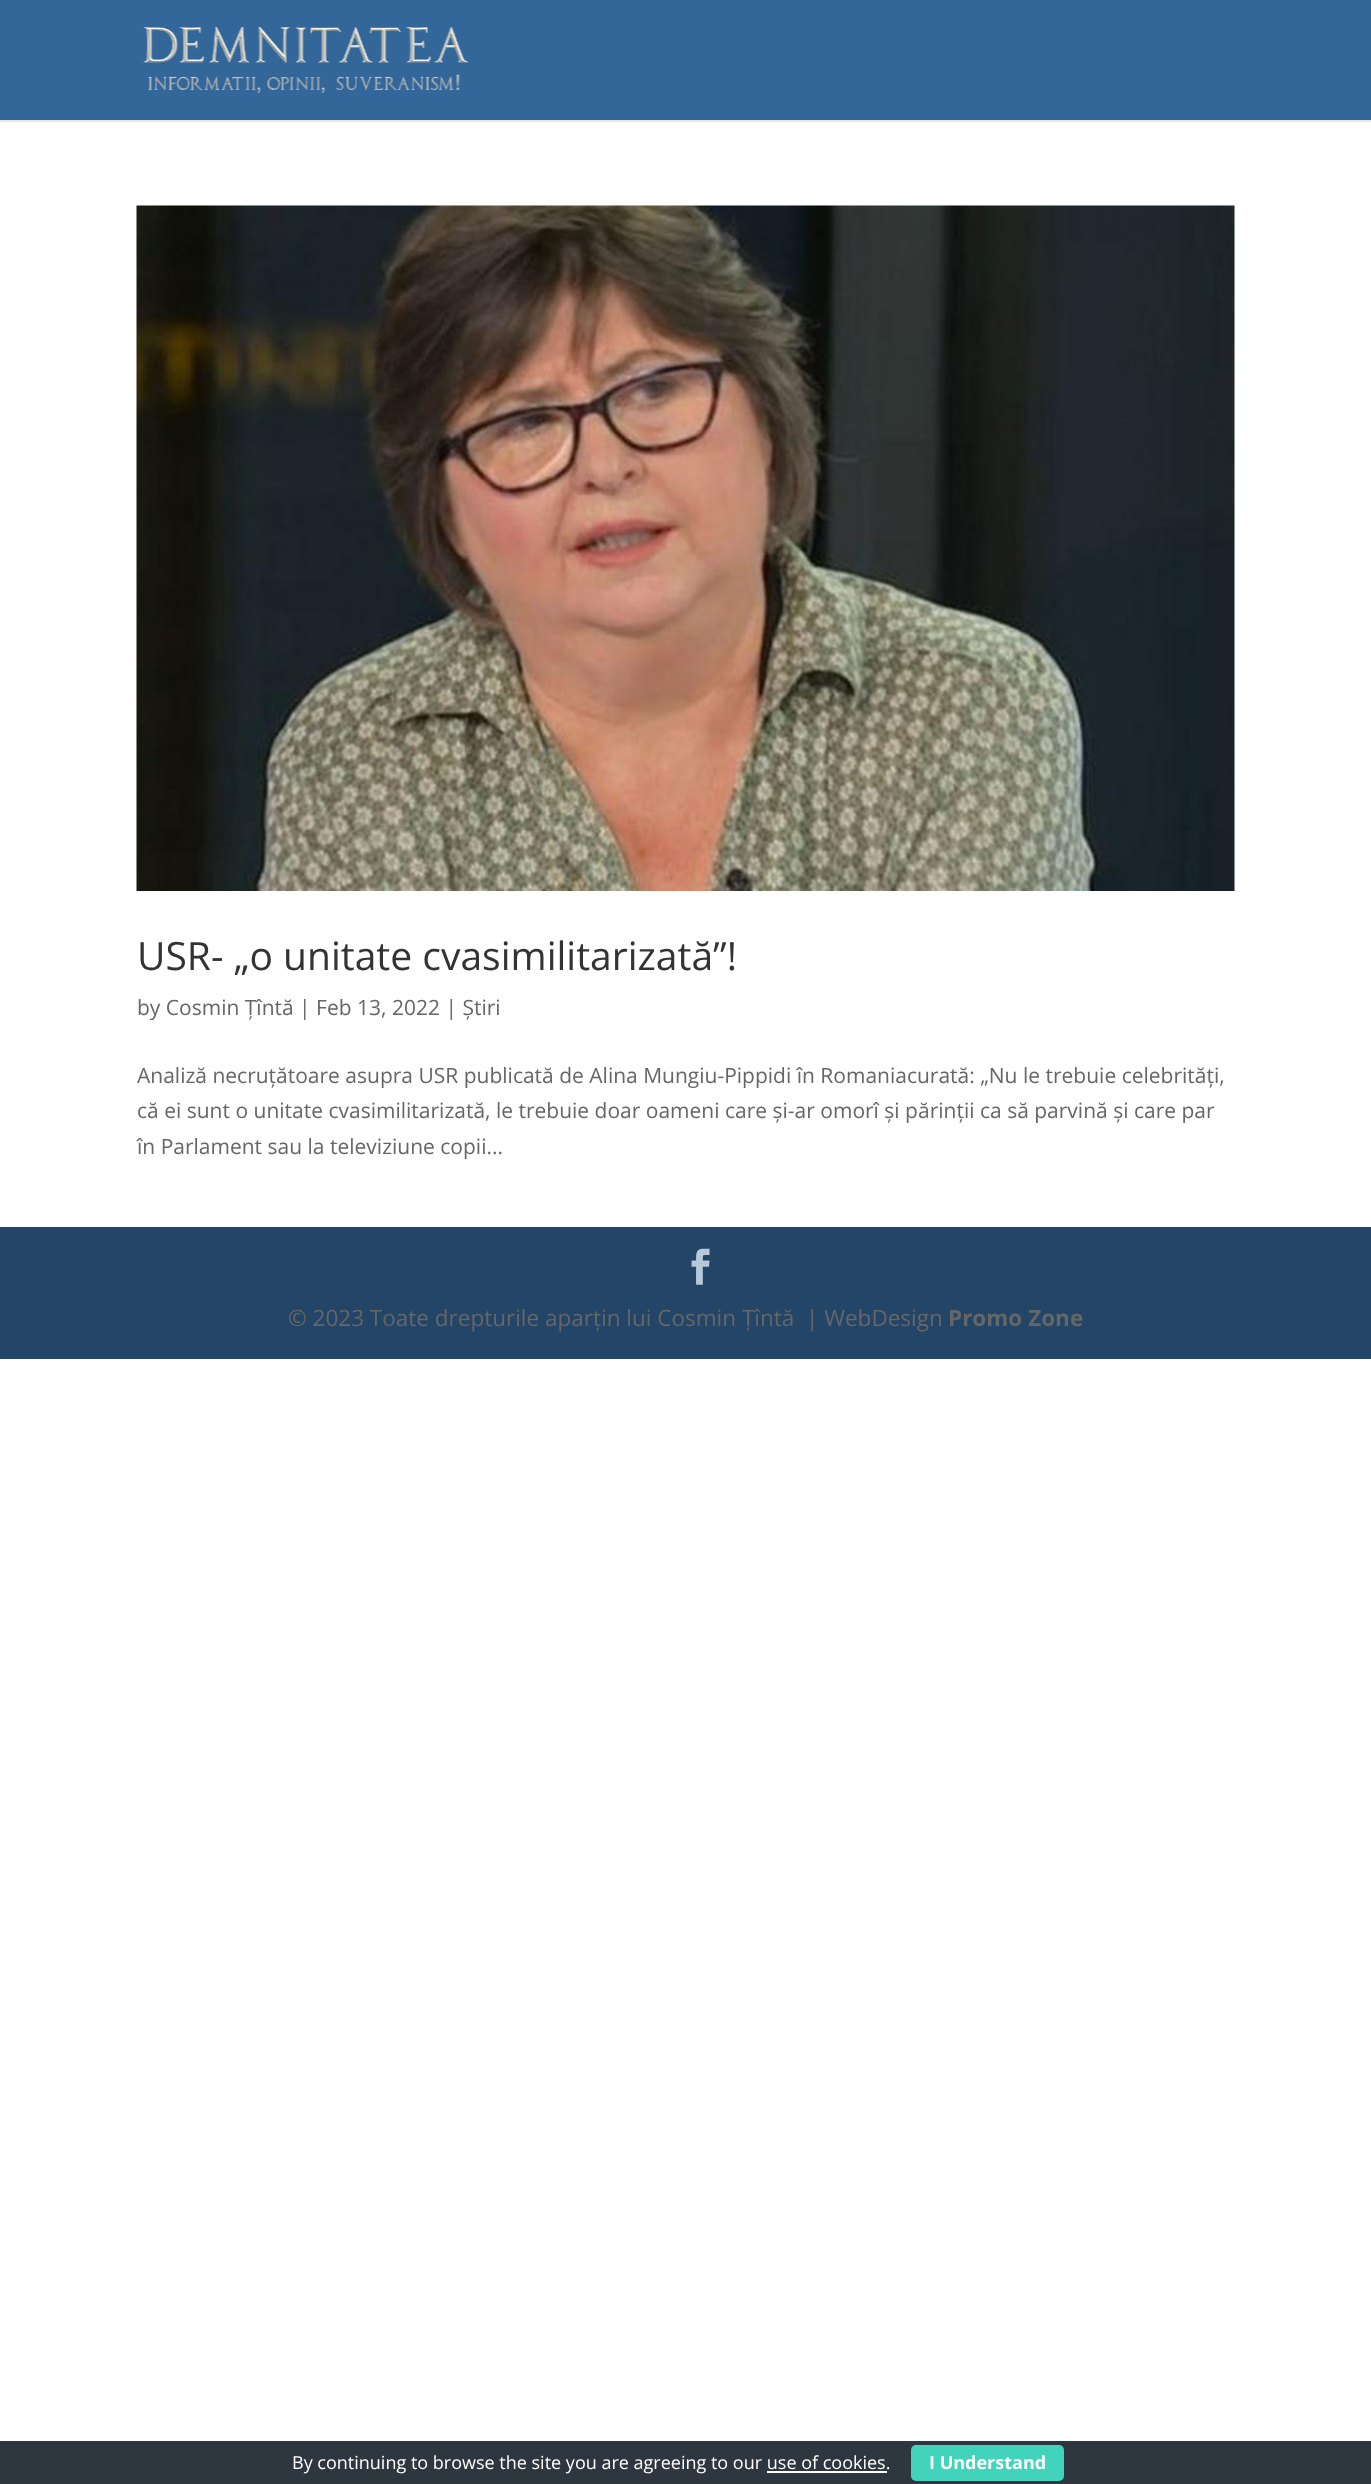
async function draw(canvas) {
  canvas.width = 1371
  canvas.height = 2484
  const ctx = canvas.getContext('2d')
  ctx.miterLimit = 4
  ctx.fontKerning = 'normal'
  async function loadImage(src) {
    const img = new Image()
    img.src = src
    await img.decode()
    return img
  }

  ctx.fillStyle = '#fff'
  ctx.fillRect(0, 0, 1371, 2484)
  ctx.fillStyle = '#e6e6e6'
  ctx.fillRect(0, 120, 1371, 2)
  ctx.fillStyle = '#369'
  ctx.fillRect(0, 0, 1371, 120)
  ctx.drawImage(await loadImage('image0.png'), 143, 27, 326, 66)
  ctx.drawImage(await loadImage('image1.png'), 136, 205, 1099, 686)
  ctx.font = '39px Open Sans'
  ctx.fillStyle = '#333'
  ctx.fillText('USR- „o unitate cvasimilitarizată”!', 137, 970)
  ctx.font = '21px Open Sans'
  ctx.fillStyle = '#666'
  ctx.fillText('by Cosmin Țîntă | Feb 13, 2022 | Știri', 137, 1015)
  ctx.fillText('Analiză necruțătoare asupra USR publicată de Alina Mungiu-Pippidi în Romaniacurată: „Nu le trebuie celebrități,', 137, 1083)
  ctx.fillText('că ei sunt o unitate cvasimilitarizată, le trebuie doar oameni care și-ar omorî și părinții ca să parvină și care par', 137, 1118)
  ctx.fillText('în Parlament sau la televiziune copii...', 137, 1154)
  ctx.fillStyle = '#234568'
  ctx.fillRect(0, 1227, 1371, 132)
  ctx.drawImage(await loadImage('image2.png'), 691, 1248, 19, 37)
  ctx.font = '22.5px Open Sans'
  ctx.fillStyle = '#666'
  ctx.fillText('© 2023 Toate drepturile aparțin lui Cosmin Țîntă', 288, 1326)
  ctx.fillText('| WebDesign', 806, 1326)
  ctx.font = 'bold 22.5px Open Sans'
  ctx.fillText('Promo Zone', 948, 1326)
  ctx.fillStyle = '#2e363f'
  ctx.fillRect(0, 2441, 1371, 43)
  ctx.font = '18px Open Sans'
  ctx.fillStyle = '#fff'
  ctx.fillText('By continuing to browse the site you are agreeing to our use of cookies.', 292, 2469)
  ctx.fillStyle = '#41d3bb'
  ctx.beginPath()
  ctx.roundRect(911, 2445, 153, 36, 5)
  ctx.fill()
  ctx.font = 'bold 18px Open Sans'
  ctx.fillStyle = '#fff'
  ctx.fillText('I Understand', 929, 2469)
  ctx.fillRect(767, 2471, 120, 2)
}

draw(document.querySelector('canvas'))
